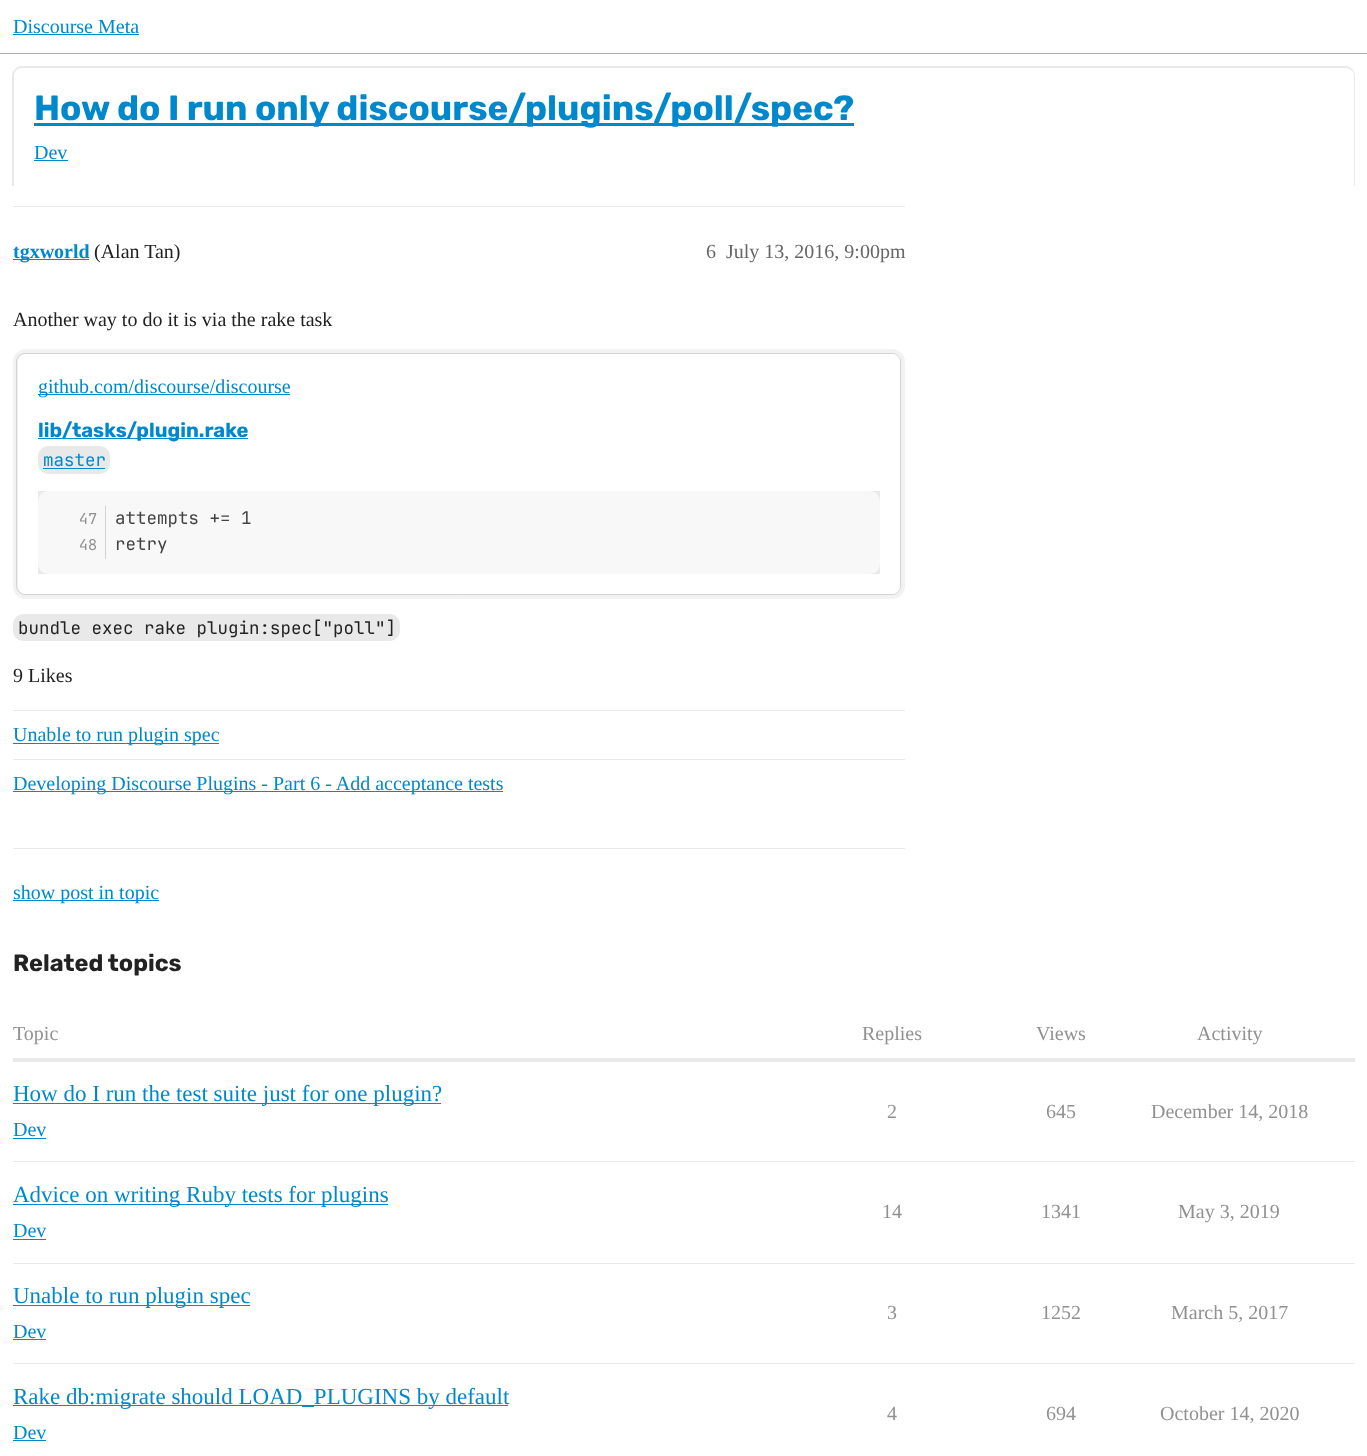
async function draw(canvas) {
  canvas.width = 1367
  canvas.height = 1456
  const ctx = canvas.getContext('2d')
  ctx.miterLimit = 4
  ctx.fontKerning = 'normal'

  ctx.fillStyle = '#fff'
  ctx.fillRect(0, 0, 1367, 1456)
  ctx.fillStyle = '#afafaf'
  ctx.fillRect(0, 53, 1367, 1)
  ctx.font = '20px Liberation Serif'
  ctx.fillStyle = '#08c'
  ctx.fillText('Discourse Meta', 13, 33)
  ctx.fillRect(13, 34, 126, 1)
  ctx.fillStyle = '#e9e9e9'
  ctx.beginPath()
  ctx.moveTo(22, 66)
  ctx.lineTo(1345, 66)
  ctx.bezierCurveTo(1351, 66, 1355, 71, 1355, 76)
  ctx.lineTo(1355, 186)
  ctx.lineTo(12, 186)
  ctx.lineTo(12, 76)
  ctx.bezierCurveTo(12, 71, 17, 66, 22, 66)
  ctx.closePath()
  ctx.moveTo(22, 68)
  ctx.lineTo(1345, 68)
  ctx.bezierCurveTo(1350, 68, 1354, 71, 1354, 76)
  ctx.lineTo(1354, 186)
  ctx.lineTo(14, 186)
  ctx.lineTo(14, 76)
  ctx.bezierCurveTo(14, 71, 18, 68, 22, 68)
  ctx.closePath()
  ctx.fill('evenodd')
  ctx.fillStyle = '#08c'
  ctx.fillRect(34, 123, 820, 3)
  ctx.font = 'bold 35px Rubik'
  ctx.fillText('How do I run only discourse/plugins/poll/spec?', 34, 120)
  ctx.font = '20px Liberation Serif'
  ctx.fillText('Dev', 34, 159)
  ctx.fillRect(34, 160, 34, 1)
  ctx.fillStyle = '#e9e9e9'
  ctx.fillRect(13, 206, 892, 1)
  ctx.fillStyle = '#08c'
  ctx.fillRect(13, 259, 76, 1)
  ctx.font = 'bold 20px Liberation Serif'
  ctx.fillText('tgxworld', 13, 258)
  ctx.font = '20px Liberation Serif'
  ctx.fillStyle = '#222'
  ctx.fillText('(Alan Tan)', 94, 258)
  ctx.fillStyle = '#666'
  ctx.fillText('6', 706, 258)
  ctx.fillText('July 13, 2016, 9:00pm', 726, 258)
  ctx.fillStyle = '#222'
  ctx.fillText('Another way to do it is via the rake task', 13, 326)
  ctx.beginPath()
  ctx.roundRect(15.5, 351.5, 887, 245, 10.5)
  ctx.strokeStyle = '#f2f2f2'
  ctx.lineWidth = 5
  ctx.stroke()
  ctx.beginPath()
  ctx.roundRect(16.5, 353.5, 884, 241, 8.5)
  ctx.strokeStyle = '#d3d3d3'
  ctx.lineWidth = 1
  ctx.stroke()
  ctx.fillStyle = '#fff'
  ctx.beginPath()
  ctx.roundRect(18, 354, 882, 240, 8)
  ctx.fill()
  ctx.fillStyle = '#08c'
  ctx.fillRect(38, 394, 252, 1)
  ctx.fillText('github.com/discourse/discourse', 38, 393)
  ctx.fillRect(38, 438, 210, 1)
  ctx.font = 'bold 20px Rubik'
  ctx.fillText('lib/tasks/plugin.rake', 38, 437)
  ctx.fillStyle = '#e9e9e9'
  ctx.beginPath()
  ctx.roundRect(38, 446, 72, 28, 10)
  ctx.fill()
  ctx.font = '17.5px JetBrains Mono'
  ctx.fillStyle = '#08c'
  ctx.fillText('master', 43, 466)
  ctx.fillRect(43, 468, 62, 1)
  ctx.fillStyle = '#e9e9e9'
  ctx.fillRect(38, 491, 842, 83)
  ctx.fillStyle = '#f8f8f8'
  ctx.beginPath()
  ctx.roundRect(38, 491, 842, 83, 10)
  ctx.fill()
  ctx.fillStyle = '#d3d3d3'
  ctx.fillRect(105, 506, 1, 53)
  ctx.font = '15px JetBrains Mono'
  ctx.fillStyle = '#919191'
  ctx.fillText('47', 79, 524)
  ctx.font = '17.5px JetBrains Mono'
  ctx.fillStyle = '#434343'
  ctx.fillText('attempts += 1', 115, 524)
  ctx.font = '15px JetBrains Mono'
  ctx.fillStyle = '#919191'
  ctx.fillText('48', 79, 550)
  ctx.font = '17.5px JetBrains Mono'
  ctx.fillStyle = '#434343'
  ctx.fillText('retry', 115, 550)
  ctx.fillStyle = '#e9e9e9'
  ctx.beginPath()
  ctx.roundRect(13, 614, 387, 27, 10)
  ctx.fill()
  ctx.fillStyle = '#222'
  ctx.fillText('bundle exec rake plugin:spec["poll"]', 18, 634)
  ctx.font = '20px Liberation Serif'
  ctx.fillText('9 Likes', 13, 682)
  ctx.fillStyle = '#e9e9e9'
  ctx.fillRect(13, 710, 892, 1)
  ctx.fillStyle = '#08c'
  ctx.fillRect(13, 743, 206, 1)
  ctx.fillText('Unable to run plugin spec', 13, 741)
  ctx.fillStyle = '#e9e9e9'
  ctx.fillRect(13, 759, 892, 1)
  ctx.fillStyle = '#08c'
  ctx.fillRect(13, 791, 490, 1)
  ctx.fillText('Developing Discourse Plugins - Part 6 - Add acceptance tests', 13, 790)
  ctx.fillStyle = '#e9e9e9'
  ctx.fillRect(13, 848, 892, 1)
  ctx.fillStyle = '#08c'
  ctx.fillRect(13, 900, 146, 1)
  ctx.fillText('show post in topic', 13, 899)
  ctx.font = 'bold 23.5px Rubik'
  ctx.fillStyle = '#222'
  ctx.fillText('Related topics', 13, 971)
  ctx.save()
  ctx.beginPath()
  ctx.rect(13, 1020, 1342, 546)
  ctx.clip()
  ctx.font = '20px Liberation Serif'
  ctx.fillStyle = '#919191'
  ctx.fillText('Topic', 13, 1040)
  ctx.restore()
  ctx.font = '20px Liberation Serif'
  ctx.fillStyle = '#919191'
  ctx.fillText('Replies', 862, 1040)
  ctx.fillText('Views', 1036, 1040)
  ctx.fillText('Activity', 1197, 1040)
  ctx.fillStyle = '#e9e9e9'
  ctx.fillRect(13, 1058, 1342, 4)
  ctx.fillRect(13, 1161, 1342, 1)
  ctx.fillStyle = '#08c'
  ctx.fillRect(13, 1103, 428, 1)
  ctx.font = '23px Liberation Serif'
  ctx.fillText('How do I run the test suite just for one plugin?', 13, 1101)
  ctx.font = '20px Liberation Serif'
  ctx.fillText('Dev', 13, 1136)
  ctx.fillRect(13, 1138, 33, 1)
  ctx.fillStyle = '#919191'
  ctx.fillText('2', 887, 1118)
  ctx.fillText('645', 1046, 1118)
  ctx.fillText('December 14, 2018', 1151, 1118)
  ctx.fillStyle = '#e9e9e9'
  ctx.fillRect(13, 1263, 1342, 1)
  ctx.fillStyle = '#08c'
  ctx.fillRect(13, 1204, 375, 1)
  ctx.font = '23px Liberation Serif'
  ctx.fillText('Advice on writing Ruby tests for plugins', 13, 1202)
  ctx.font = '20px Liberation Serif'
  ctx.fillText('Dev', 13, 1237)
  ctx.fillRect(13, 1239, 33, 1)
  ctx.fillStyle = '#919191'
  ctx.fillText('14', 882, 1218)
  ctx.fillText('1341', 1041, 1218)
  ctx.fillText('May 3, 2019', 1178, 1218)
  ctx.fillStyle = '#e9e9e9'
  ctx.fillRect(13, 1363, 1342, 1)
  ctx.fillStyle = '#08c'
  ctx.fillRect(13, 1305, 237, 1)
  ctx.font = '23px Liberation Serif'
  ctx.fillText('Unable to run plugin spec', 13, 1303)
  ctx.font = '20px Liberation Serif'
  ctx.fillText('Dev', 13, 1338)
  ctx.fillRect(13, 1339, 33, 1)
  ctx.fillStyle = '#919191'
  ctx.fillText('3', 887, 1319)
  ctx.fillText('1252', 1041, 1319)
  ctx.fillText('March 5, 2017', 1171, 1319)
  ctx.fillStyle = '#08c'
  ctx.fillRect(13, 1405, 495, 1)
  ctx.font = '23px Liberation Serif'
  ctx.fillText('Rake db:migrate should LOAD_PLUGINS by default', 13, 1404)
  ctx.font = '20px Liberation Serif'
  ctx.fillText('Dev', 13, 1439)
  ctx.fillRect(13, 1440, 33, 1)
  ctx.fillStyle = '#919191'
  ctx.fillText('4', 887, 1420)
  ctx.fillText('694', 1046, 1420)
  ctx.fillText('October 14, 2020', 1160, 1420)
}

draw(document.querySelector('canvas'))
